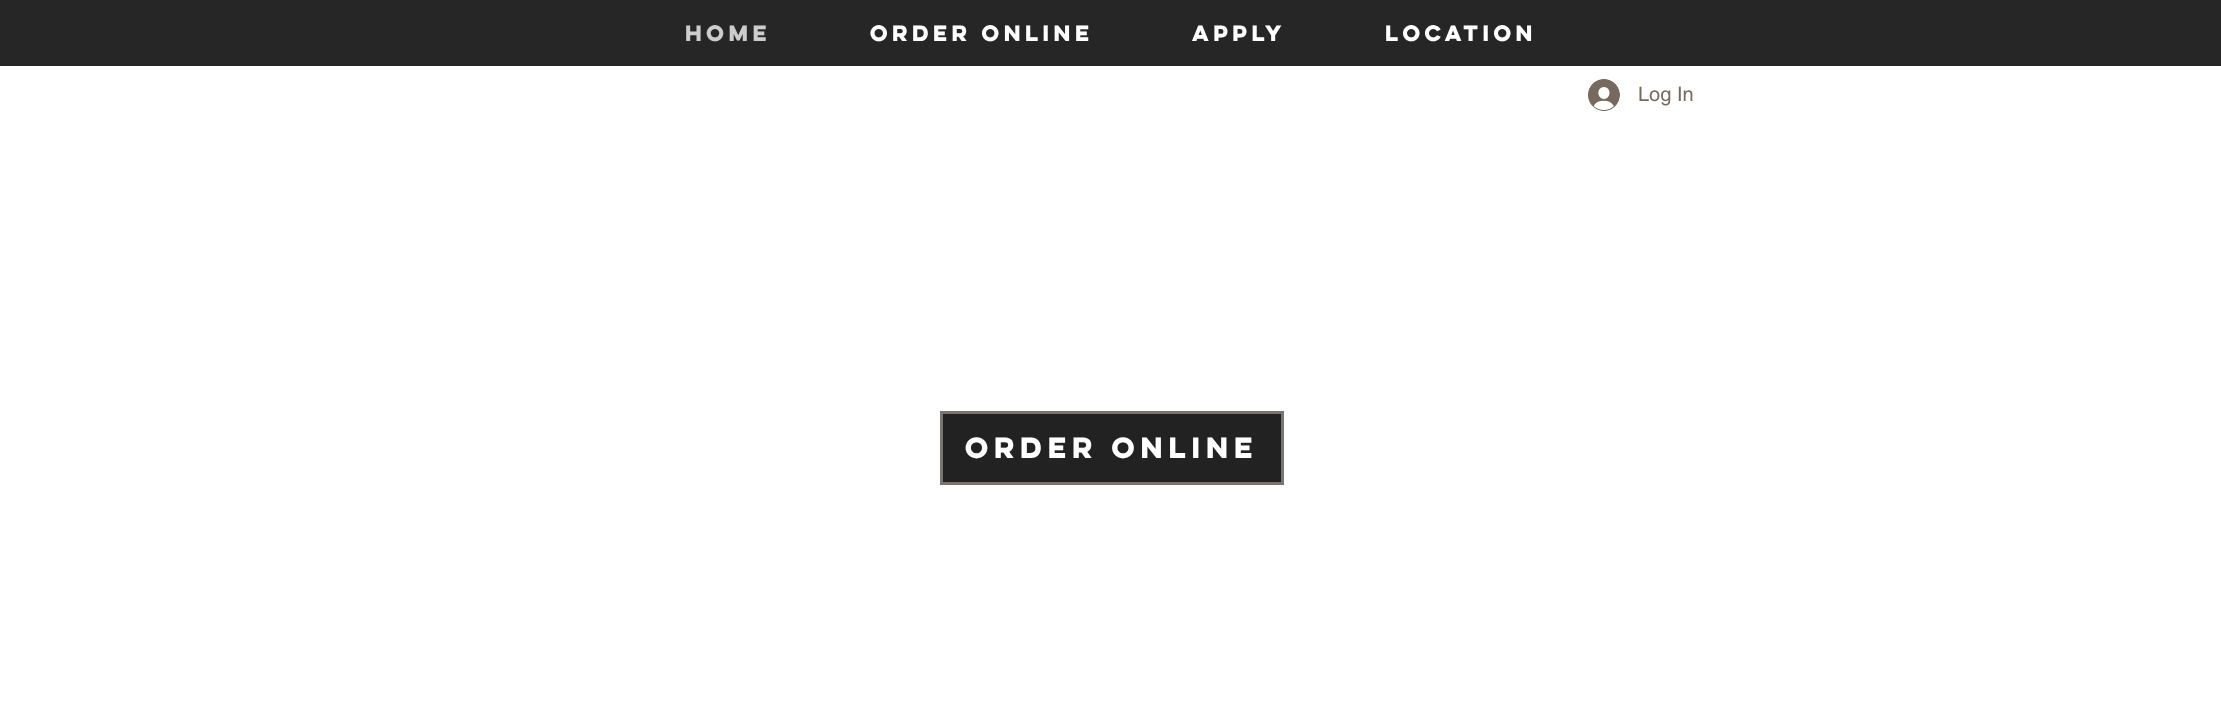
async function draw(canvas) {
  canvas.width = 2221
  canvas.height = 704
  const ctx = canvas.getContext('2d')
  ctx.miterLimit = 4
  ctx.fontKerning = 'normal'
  async function loadImage(src) {
    const img = new Image()
    img.src = src
    await img.decode()
    return img
  }

  ctx.fillStyle = '#fff'
  ctx.fillRect(0, 0, 2221, 704)
  ctx.fillStyle = '#262626'
  ctx.fillRect(0, 0, 2221, 66)
  ctx.font = 'bold 20px "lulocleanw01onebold"'
  ctx.fillStyle = '#ccc'
  ctx.fillText('Home', 685, 41)
  ctx.fillStyle = '#fff'
  ctx.fillText('Order Online', 870, 41)
  ctx.fillText('Apply', 1192, 41)
  ctx.fillText('Location', 1385, 41)
  ctx.drawImage(await loadImage('image0.png'), 1588, 79, 32, 32)
  ctx.font = '20px helvetica'
  ctx.fillStyle = '#756a5d'
  ctx.fillText('Log In', 1638, 101)
  ctx.fillStyle = '#222'
  ctx.beginPath()
  ctx.rect(941.5, 412.5, 341, 71)
  ctx.fill()
  ctx.strokeStyle = '#7b736f'
  ctx.lineWidth = 3
  ctx.stroke()
  ctx.font = 'bold 26.25px "lulocleanw01onebold"'
  ctx.fillStyle = '#fff'
  ctx.fillText('ORDER ONLINE', 965, 458)
}

draw(document.querySelector('canvas'))
